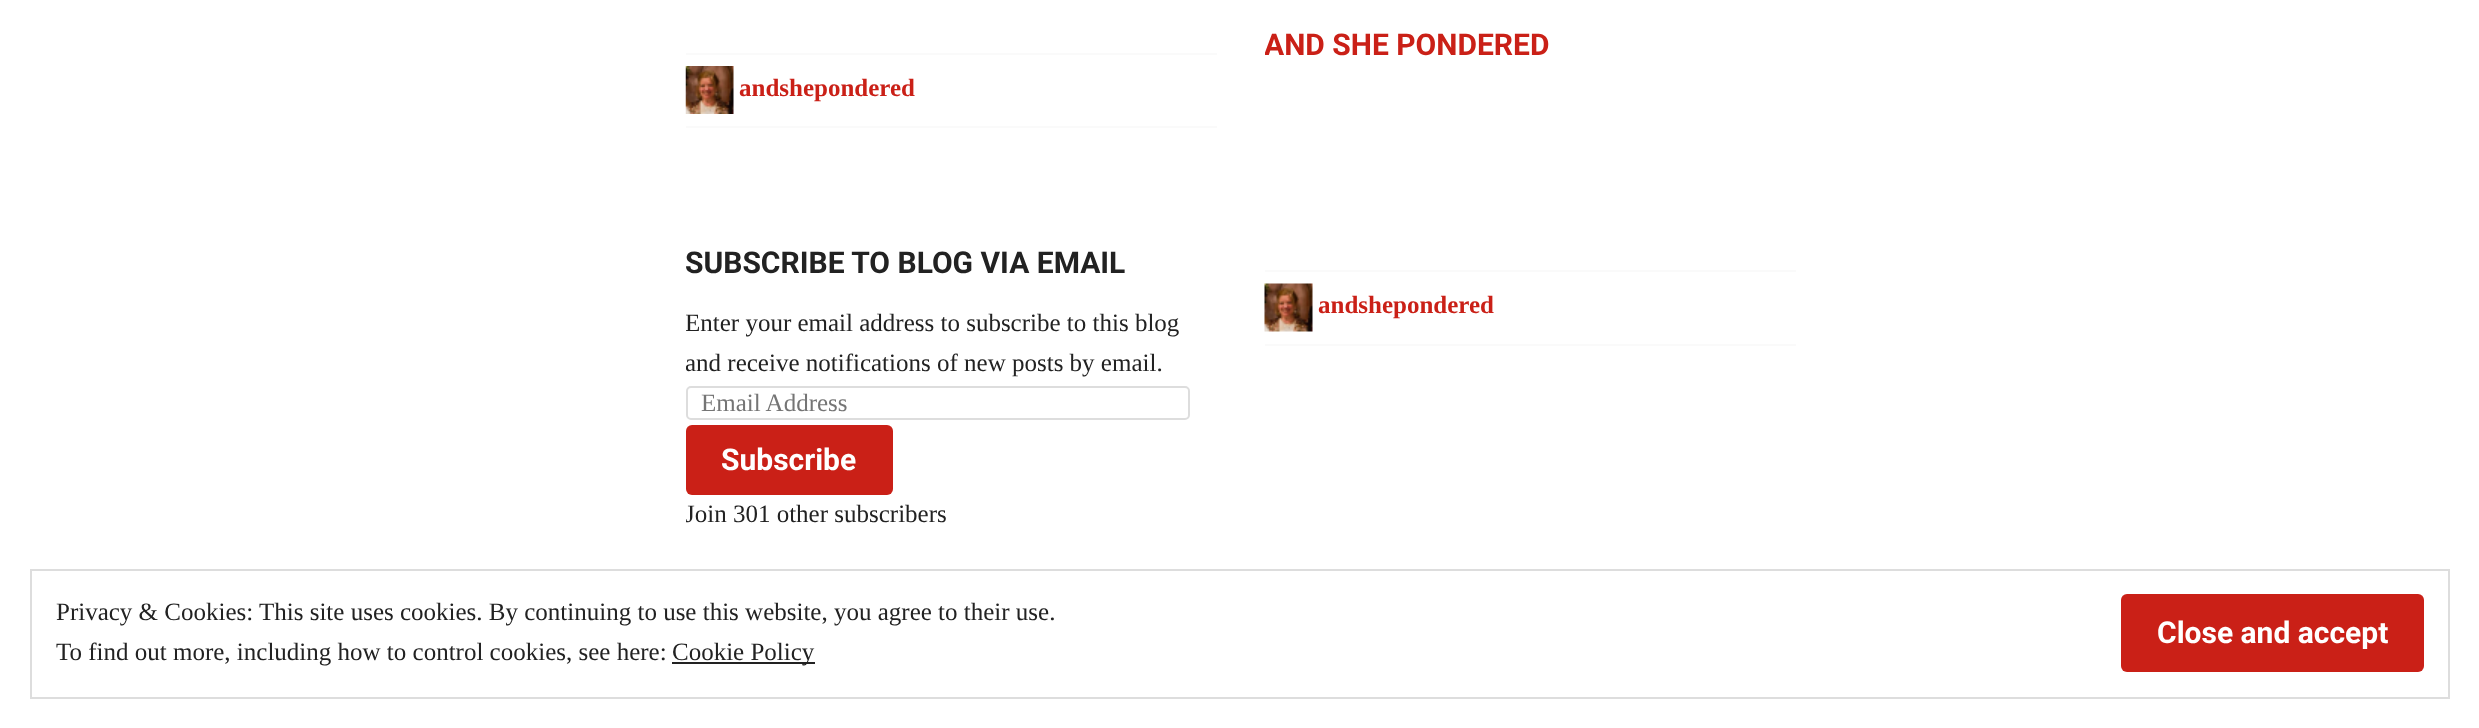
async function draw(canvas) {
  canvas.width = 2479
  canvas.height = 728
  const ctx = canvas.getContext('2d')
  ctx.miterLimit = 4
  ctx.fontKerning = 'normal'
  async function loadImage(src) {
    const img = new Image()
    img.src = src
    await img.decode()
    return img
  }

  ctx.fillStyle = '#fff'
  ctx.fillRect(0, 0, 2479, 728)
  ctx.save()
  ctx.beginPath()
  ctx.rect(1265, 29, 531, 121)
  ctx.clip()
  ctx.font = 'bold 30px Roboto'
  ctx.fillStyle = '#ca2017'
  ctx.fillText('AND SHE PONDERED', 1264, 55)
  ctx.restore()
  ctx.fillStyle = '#fafafa'
  ctx.fillRect(686, 126, 531, 2)
  ctx.fillRect(686, 53, 531, 2)
  ctx.drawImage(await loadImage('image0.png'), 685, 66, 49, 48)
  ctx.font = 'bold 25px Liberation Serif'
  ctx.fillStyle = '#ca2017'
  ctx.fillText('andshepondered', 739, 96)
  ctx.font = 'bold 30px Roboto'
  ctx.fillStyle = '#222'
  ctx.fillText('SUBSCRIBE TO BLOG VIA EMAIL', 685, 273)
  ctx.save()
  ctx.beginPath()
  ctx.rect(686, 0, 1110, 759)
  ctx.clip()
  ctx.font = '25px Liberation Serif'
  ctx.fillText('Enter your email address to subscribe to this blog', 685, 331)
  ctx.fillText('and receive notifications of new posts by email.', 685, 371)
  ctx.restore()
  ctx.beginPath()
  ctx.roundRect(687, 387, 502, 32, 4)
  ctx.strokeStyle = '#ddd'
  ctx.lineWidth = 2
  ctx.stroke()
  ctx.font = '25px Liberation Serif'
  ctx.fillStyle = '#757575'
  ctx.fillText('Email Address', 701, 411)
  ctx.fillStyle = '#ca2017'
  ctx.beginPath()
  ctx.roundRect(686, 425, 207, 70, 6)
  ctx.fill()
  ctx.font = 'bold 30px Roboto'
  ctx.fillStyle = '#fff'
  ctx.fillText('Subscribe', 721, 470)
  ctx.save()
  ctx.beginPath()
  ctx.rect(686, 0, 1110, 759)
  ctx.clip()
  ctx.font = '25px Liberation Serif'
  ctx.fillStyle = '#222'
  ctx.fillText('Join 301 other subscribers', 685, 522)
  ctx.restore()
  ctx.fillStyle = '#fafafa'
  ctx.fillRect(1265, 344, 531, 2)
  ctx.fillRect(1265, 270, 531, 2)
  ctx.drawImage(await loadImage('image1.png'), 1264, 283, 49, 49)
  ctx.font = 'bold 25px Liberation Serif'
  ctx.fillStyle = '#ca2017'
  ctx.fillText('andshepondered', 1318, 313)
  ctx.strokeRect(31, 570, 2418, 128)
  ctx.font = '25px Liberation Serif'
  ctx.fillStyle = '#222'
  ctx.fillText('Privacy & Cookies: This site uses cookies. By continuing to use this website, you agree to their use.', 56, 620)
  ctx.fillStyle = '#ca2017'
  ctx.beginPath()
  ctx.roundRect(2121, 594, 303, 78, 6)
  ctx.fill()
  ctx.font = 'bold 30px Roboto'
  ctx.fillStyle = '#fff'
  ctx.fillText('Close and accept', 2157, 643)
  ctx.font = '25px Liberation Serif'
  ctx.fillStyle = '#222'
  ctx.fillText('To find out more, including how to control cookies, see here:', 56, 660)
  ctx.fillRect(672, 662, 143, 2)
  ctx.fillText('Cookie Policy', 672, 660)
}

draw(document.querySelector('canvas'))
